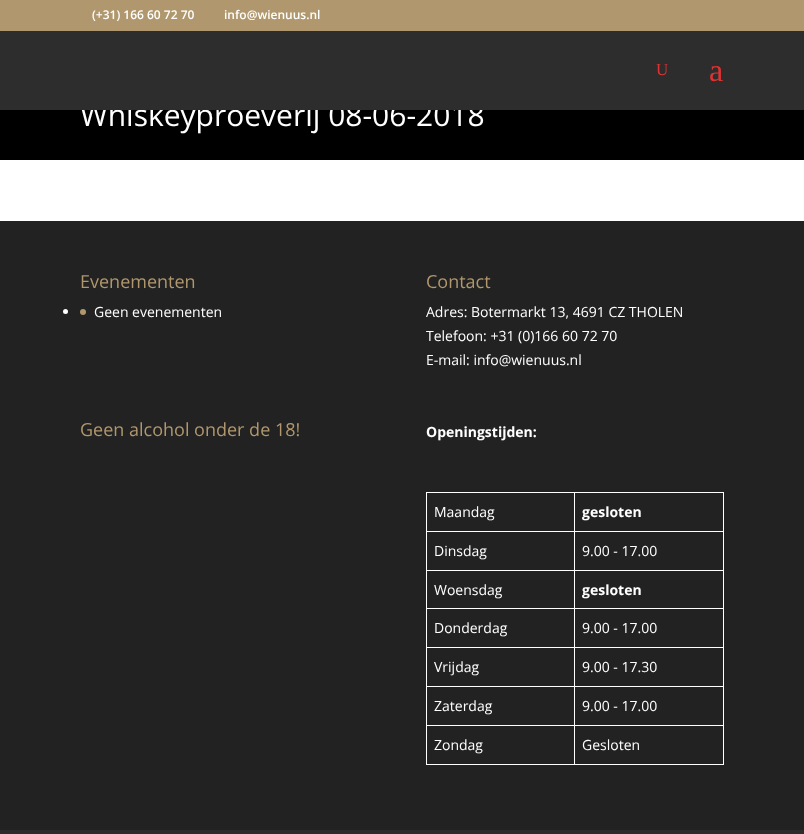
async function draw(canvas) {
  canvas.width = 804
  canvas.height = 834
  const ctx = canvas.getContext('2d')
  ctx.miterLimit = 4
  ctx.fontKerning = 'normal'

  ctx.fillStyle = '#fff'
  ctx.fillRect(0, 0, 804, 834)
  ctx.fillStyle = '#b0976d'
  ctx.fillRect(0, 0, 804, 31)
  ctx.font = '600 12px Open Sans'
  ctx.fillStyle = '#fff'
  ctx.fillText('(+31) 166 60 72 70', 92, 19)
  ctx.fillText('info@wienuus.nl', 224, 19)
  ctx.fillStyle = '#000'
  ctx.fillRect(0, 110, 804, 50)
  ctx.fillStyle = '#0000001a'
  ctx.fillRect(82, 110, 401, 1)
  ctx.font = '30px Open Sans'
  ctx.fillStyle = '#fff'
  ctx.fillText('Whiskeyproeverij 08-06-2018', 80, 126)
  ctx.fillStyle = '#2d2d2d'
  ctx.fillRect(0, 31, 804, 79)
  ctx.font = '17px Liberation Serif'
  ctx.fillStyle = '#d33'
  ctx.fillText('U', 656, 75)
  ctx.font = '32px Liberation Serif'
  ctx.fillText('a', 709, 81)
  ctx.fillStyle = '#222'
  ctx.fillRect(0, 221, 804, 609)
  ctx.font = '18px Open Sans'
  ctx.fillStyle = '#b0976d'
  ctx.fillText('Evenementen', 80, 288)
  ctx.fillStyle = '#fff'
  ctx.beginPath()
  ctx.arc(65.5, 311.5, 2.5, 0, 2 * Math.PI)
  ctx.fill()
  ctx.fillStyle = '#b0976d'
  ctx.beginPath()
  ctx.arc(83, 312, 3, 0, 2 * Math.PI)
  ctx.fill()
  ctx.font = '14px Open Sans'
  ctx.fillStyle = '#fff'
  ctx.fillText('Geen evenementen', 94, 317)
  ctx.font = '18px Open Sans'
  ctx.fillStyle = '#b0976d'
  ctx.fillText('Contact', 426, 288)
  ctx.font = '14px Open Sans'
  ctx.fillStyle = '#fff'
  ctx.fillText('Adres: Botermarkt 13, 4691 CZ THOLEN', 426, 317)
  ctx.fillText('Telefoon: +31 (0)166 60 72 70', 426, 341)
  ctx.fillText('E-mail: info@wienuus.nl', 426, 365)
  ctx.font = '18px Open Sans'
  ctx.fillStyle = '#b0976d'
  ctx.fillText('Geen alcohol onder de 18!', 80, 436)
  ctx.font = 'bold 14px Open Sans'
  ctx.fillStyle = '#fff'
  ctx.fillText('Openingstijden:', 426, 437)
  ctx.fillRect(574, 492, 150, 1)
  ctx.fillRect(574, 531, 150, 1)
  ctx.fillRect(574, 570, 150, 1)
  ctx.fillRect(574, 608, 150, 1)
  ctx.fillRect(574, 647, 150, 1)
  ctx.fillRect(574, 686, 150, 1)
  ctx.fillRect(574, 725, 150, 1)
  ctx.fillRect(723, 725, 1, 40)
  ctx.fillRect(574, 764, 150, 1)
  ctx.fillRect(574, 725, 1, 40)
  ctx.fillRect(426, 725, 149, 1)
  ctx.fillRect(574, 686, 1, 40)
  ctx.fillRect(426, 686, 149, 1)
  ctx.fillRect(574, 647, 1, 40)
  ctx.fillRect(426, 647, 149, 1)
  ctx.fillRect(574, 608, 1, 40)
  ctx.fillRect(426, 608, 149, 1)
  ctx.fillRect(574, 570, 1, 39)
  ctx.fillRect(426, 570, 149, 1)
  ctx.fillRect(574, 531, 1, 40)
  ctx.fillRect(426, 531, 149, 1)
  ctx.fillRect(574, 492, 1, 40)
  ctx.fillRect(426, 492, 149, 1)
  ctx.fillRect(426, 764, 149, 1)
  ctx.fillRect(426, 725, 1, 40)
  ctx.fillRect(426, 686, 1, 40)
  ctx.fillRect(426, 647, 1, 40)
  ctx.fillRect(426, 608, 1, 40)
  ctx.fillRect(426, 570, 1, 39)
  ctx.fillRect(426, 531, 1, 40)
  ctx.fillRect(426, 492, 1, 40)
  ctx.font = '14px Open Sans'
  ctx.fillText('Maandag', 434, 517)
  ctx.fillRect(723, 686, 1, 40)
  ctx.fillRect(723, 647, 1, 40)
  ctx.fillRect(723, 608, 1, 40)
  ctx.fillRect(723, 570, 1, 39)
  ctx.fillRect(723, 531, 1, 40)
  ctx.fillRect(723, 492, 1, 40)
  ctx.font = 'bold 14px Open Sans'
  ctx.fillText('gesloten', 582, 517)
  ctx.font = '14px Open Sans'
  ctx.fillText('Dinsdag', 434, 556)
  ctx.fillText('9.00 - 17.00', 582, 556)
  ctx.fillText('Woensdag', 434, 595)
  ctx.font = 'bold 14px Open Sans'
  ctx.fillText('gesloten', 582, 595)
  ctx.font = '14px Open Sans'
  ctx.fillText('Donderdag', 434, 633)
  ctx.fillText('9.00 - 17.00', 582, 633)
  ctx.fillText('Vrijdag', 434, 672)
  ctx.fillText('9.00 - 17.30', 582, 672)
  ctx.fillText('Zaterdag', 434, 711)
  ctx.fillText('9.00 - 17.00', 582, 711)
  ctx.fillText('Zondag', 434, 750)
  ctx.fillText('Gesloten', 582, 750)
  ctx.fillStyle = '#2d2d2d'
  ctx.fillRect(0, 830, 804, 4)
}

draw(document.querySelector('canvas'))
